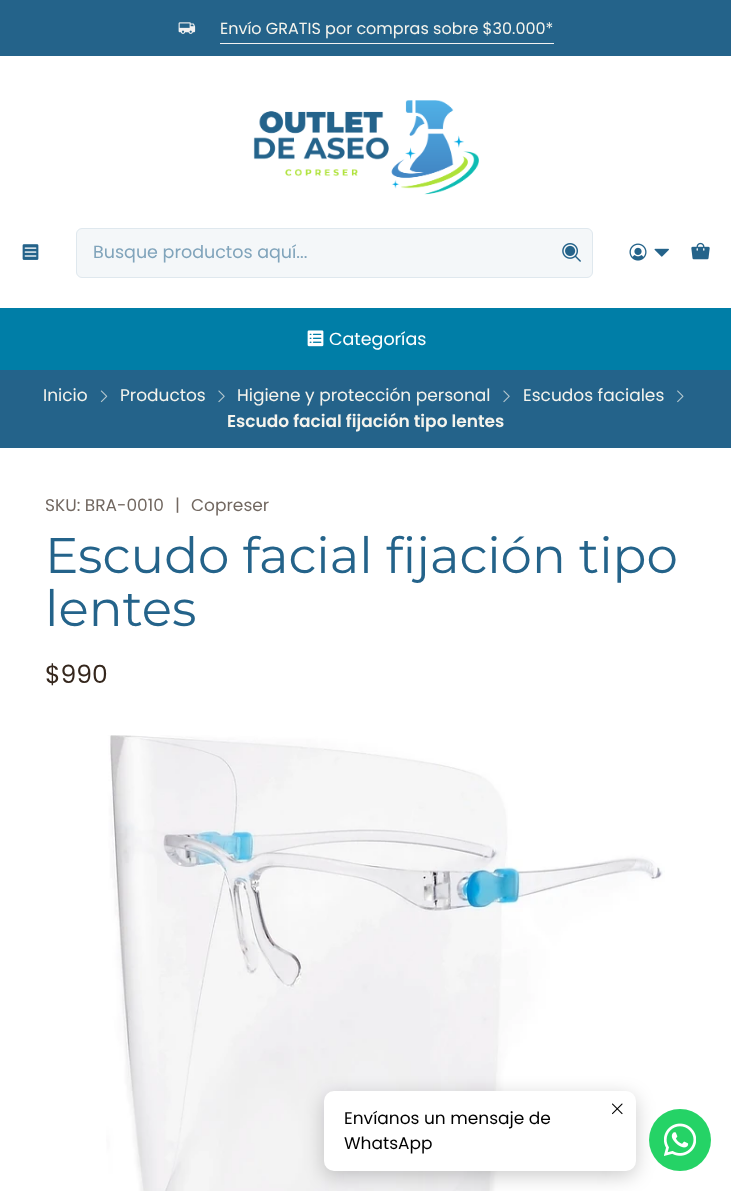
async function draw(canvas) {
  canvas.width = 731
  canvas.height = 1191
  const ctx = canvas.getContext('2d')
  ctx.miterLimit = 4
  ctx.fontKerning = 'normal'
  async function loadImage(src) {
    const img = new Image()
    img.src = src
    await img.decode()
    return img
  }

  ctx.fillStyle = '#fff'
  ctx.fillRect(0, 0, 731, 1191)
  ctx.fillStyle = '#24638a'
  ctx.fillRect(0, 0, 731, 56)
  ctx.drawImage(await loadImage('image0.png'), 178, 22, 18, 12)
  ctx.fillStyle = '#f1f1f1'
  ctx.fillRect(220, 43, 334, 1)
  ctx.font = '16px Poppins'
  ctx.fillStyle = '#f5f4ed'
  ctx.fillText('Envío GRATIS por compras sobre $30.000*', 220, 34)
  ctx.drawImage(await loadImage('image1.png'), 253, 100, 226, 95)
  ctx.drawImage(await loadImage('image2.png'), 22, 244, 17, 16)
  ctx.fillStyle = '#f4f7f9'
  ctx.beginPath()
  ctx.roundRect(76.5, 228.5, 516, 49, 5.5)
  ctx.fill()
  ctx.strokeStyle = '#dfe8ee'
  ctx.stroke()
  ctx.font = '17.5px Poppins'
  ctx.fillStyle = '#80a4bb'
  ctx.fillText('Busque productos aquí...', 93, 258)
  ctx.drawImage(await loadImage('image3.png'), 562, 243, 19, 19)
  ctx.drawImage(await loadImage('image4.png'), 629, 243, 18, 18)
  ctx.drawImage(await loadImage('image5.png'), 654, 248, 15, 9)
  ctx.drawImage(await loadImage('image6.png'), 691, 242, 19, 18)
  ctx.fillStyle = '#007ea7'
  ctx.fillRect(0, 308, 731, 62)
  ctx.drawImage(await loadImage('image7.png'), 307, 330, 17, 17)
  ctx.fillStyle = '#fff'
  ctx.fillText('Categorías', 329, 345)
  ctx.fillStyle = '#24638a'
  ctx.fillRect(0, 370, 731, 78)
  ctx.font = '17px Poppins'
  ctx.fillStyle = '#f5f4ed'
  ctx.fillText('Inicio', 43, 401)
  ctx.drawImage(await loadImage('image8.png'), 100, 390, 8, 13)
  ctx.fillText('Productos', 120, 401)
  ctx.drawImage(await loadImage('image9.png'), 218, 390, 7, 13)
  ctx.fillText('Higiene y protección personal', 237, 401)
  ctx.drawImage(await loadImage('image9.png'), 503, 390, 7, 13)
  ctx.fillText('Escudos faciales', 523, 401)
  ctx.drawImage(await loadImage('image10.png'), 677, 390, 7, 13)
  ctx.font = '600 17px Poppins'
  ctx.fillText('Escudo facial fijación tipo lentes', 227, 427)
  ctx.font = '17px Poppins'
  ctx.fillStyle = '#726861'
  ctx.fillText('SKU: BRA-0010', 45, 511)
  ctx.fillText('|', 175, 511)
  ctx.fillText('Copreser', 191, 511)
  ctx.font = '50px Montserrat'
  ctx.fillStyle = '#24638a'
  ctx.fillText('Escudo facial fijación tipo', 45, 573)
  ctx.fillText('lentes', 45, 626)
  ctx.font = '25px Poppins'
  ctx.fillStyle = '#35271d'
  ctx.fillText('$990', 45, 683)
  ctx.drawImage(await loadImage('image11.png'), 106, 735, 559, 456)
  ctx.fillStyle = '#00000033'
  ctx.filter = 'blur(9.5px)'
  ctx.beginPath()
  ctx.roundRect(324, 1096, 312, 80, 10)
  ctx.fill()
  ctx.filter = 'none'
  ctx.fillStyle = '#fff'
  ctx.beginPath()
  ctx.roundRect(324, 1091, 312, 80, 10)
  ctx.fill()
  ctx.font = '17px Poppins'
  ctx.fillStyle = '#000'
  ctx.fillText('Envíanos un mensaje de', 344, 1124)
  ctx.drawImage(await loadImage('image12.png'), 612, 1103, 11, 12)
  ctx.fillText('WhatsApp', 344, 1149)
  ctx.fillStyle = '#25d366'
  ctx.beginPath()
  ctx.arc(680, 1140, 31, 0, 2 * Math.PI)
  ctx.fill()
  ctx.drawImage(await loadImage('image13.png'), 664, 1123, 32, 33)
}

draw(document.querySelector('canvas'))
